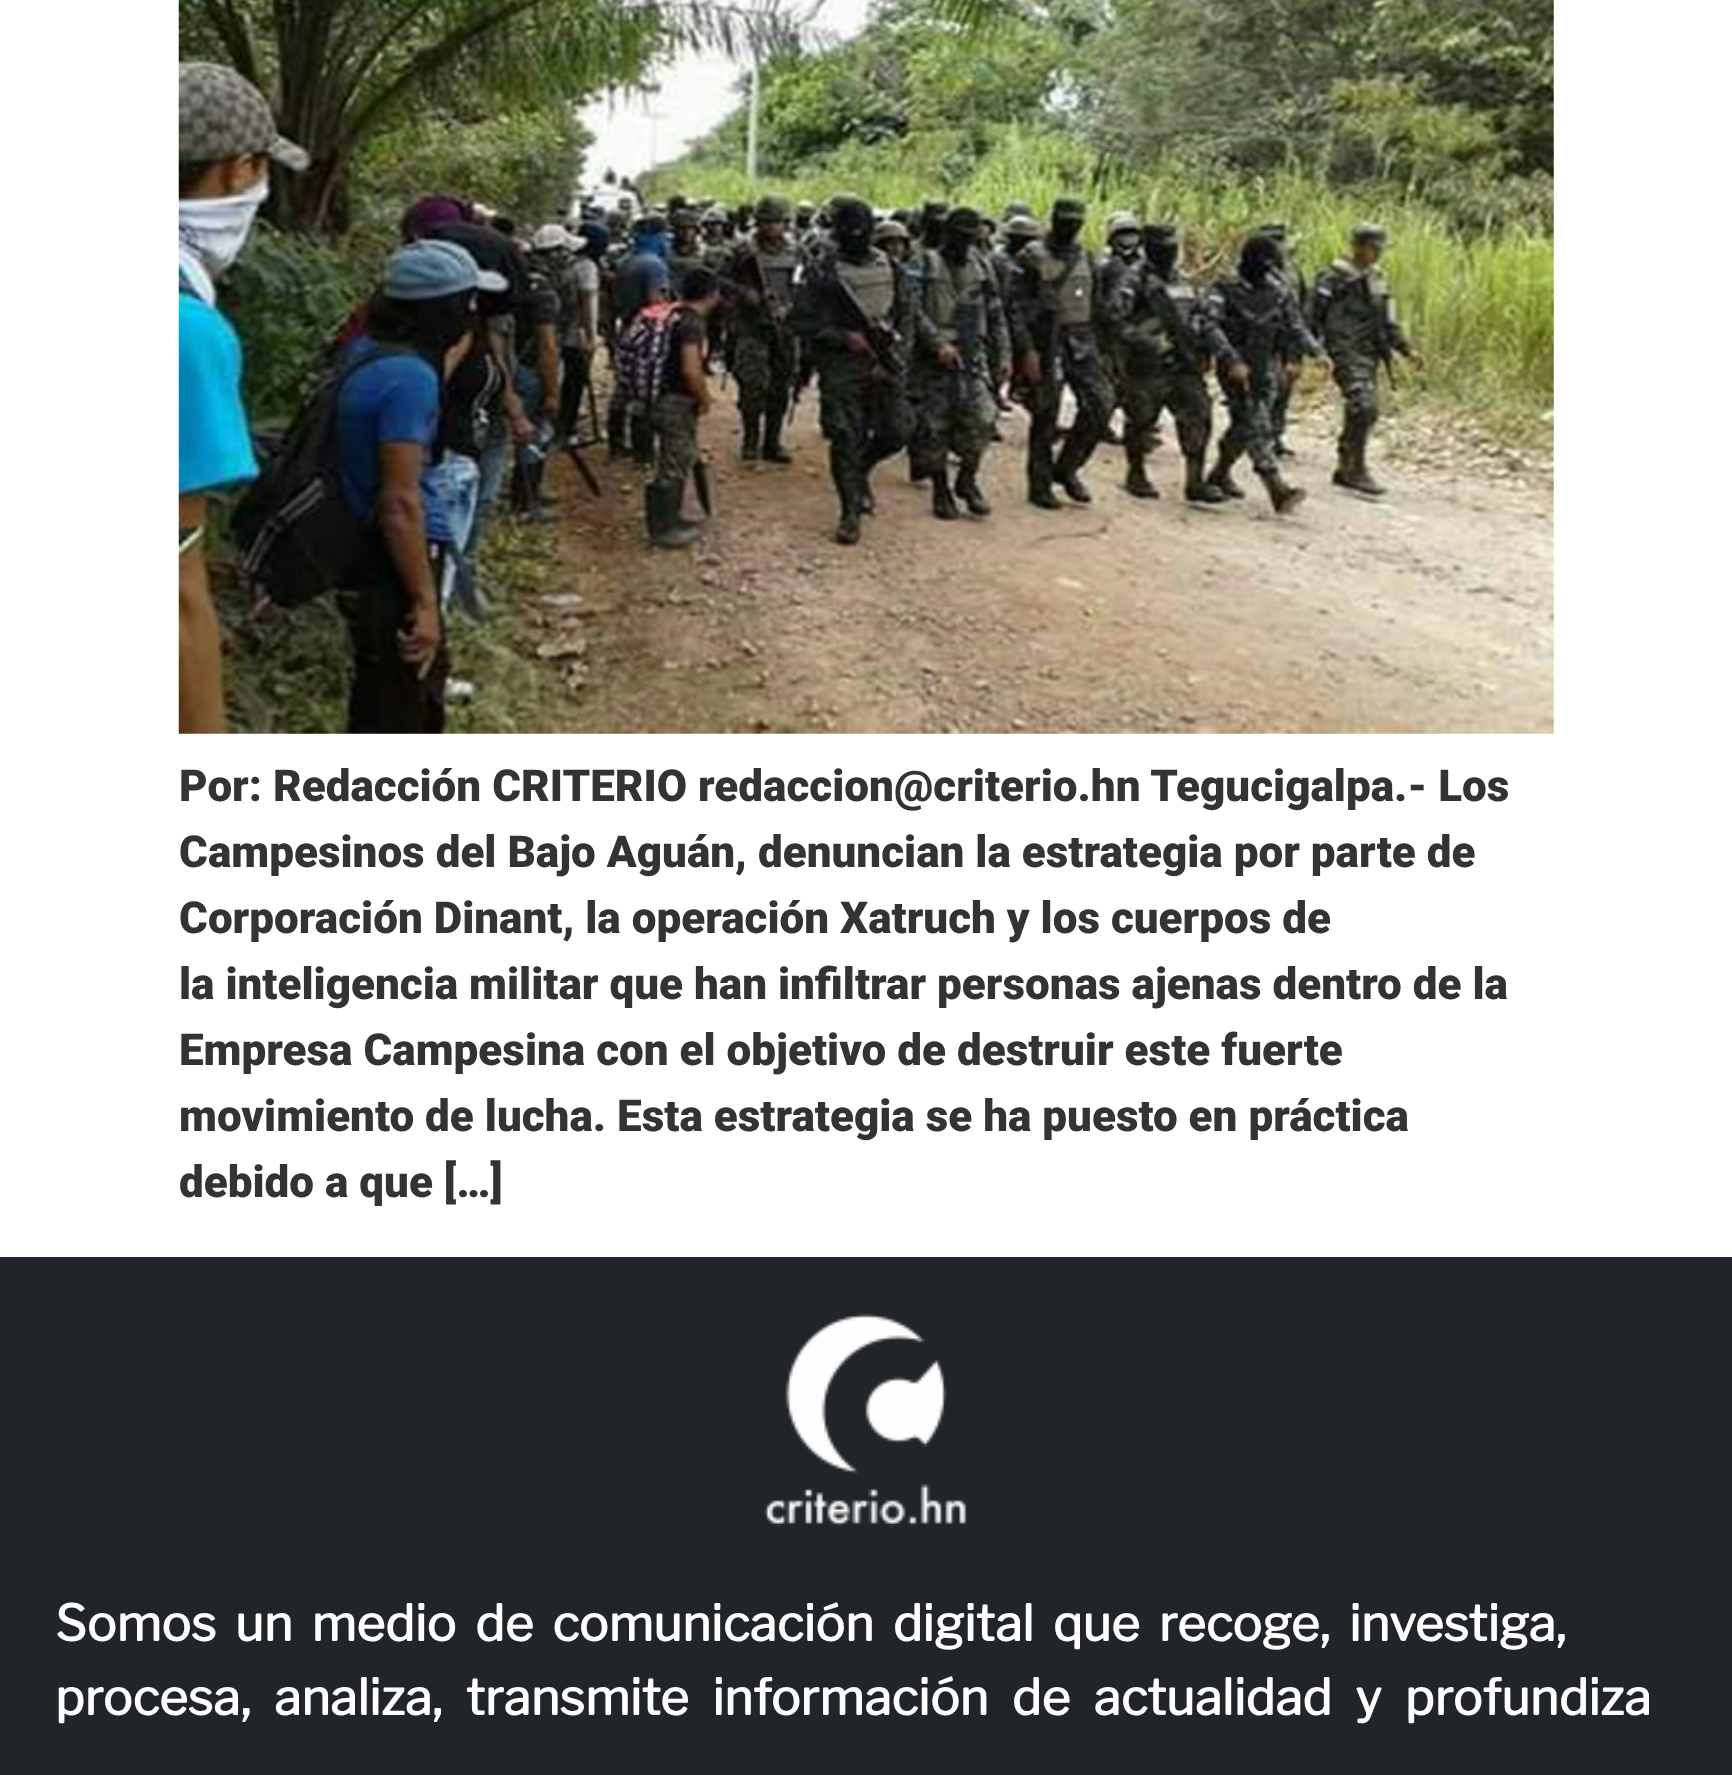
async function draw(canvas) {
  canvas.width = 1732
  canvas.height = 1775
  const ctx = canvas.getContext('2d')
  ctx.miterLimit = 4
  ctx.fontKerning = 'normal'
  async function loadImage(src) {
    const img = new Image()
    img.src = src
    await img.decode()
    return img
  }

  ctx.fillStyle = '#fff'
  ctx.fillRect(0, 0, 1732, 1775)
  ctx.drawImage(await loadImage('image0.png'), 178, 0, 1376, 734)
  ctx.font = '900 44px Roboto'
  ctx.fillStyle = '#333'
  ctx.fillText('Por: Redacción CRITERIO redaccion@criterio.hn Tegucigalpa.- Los', 179, 801)
  ctx.fillText('Campesinos del Bajo Aguán, denuncian la estrategia por parte de', 179, 867)
  ctx.fillText('Corporación Dinant, la operación Xatruch y los cuerpos de', 179, 933)
  ctx.fillText('la inteligencia militar que han infiltrar personas ajenas dentro de la', 179, 999)
  ctx.fillText('Empresa Campesina con el objetivo de destruir este fuerte', 179, 1065)
  ctx.fillText('movimiento de lucha. Esta estrategia se ha puesto en práctica', 179, 1131)
  ctx.fillText('debido a que […]', 179, 1197)
  ctx.fillStyle = '#212529'
  ctx.fillRect(0, 1257, 1732, 518)
  ctx.drawImage(await loadImage('image1.png'), 764, 1313, 203, 214)
  ctx.wordSpacing = '8.25px'
  ctx.font = 'bold 49.5px Libre Franklin'
  ctx.fillStyle = '#fff'
  ctx.fillText('Somos un medio de comunicación digital que recoge, investiga,', 55, 1641)
  ctx.wordSpacing = '12.75px'
  ctx.fillText('procesa, analiza, transmite información de actualidad y profundiza', 55, 1715)
}

draw(document.querySelector('canvas'))
